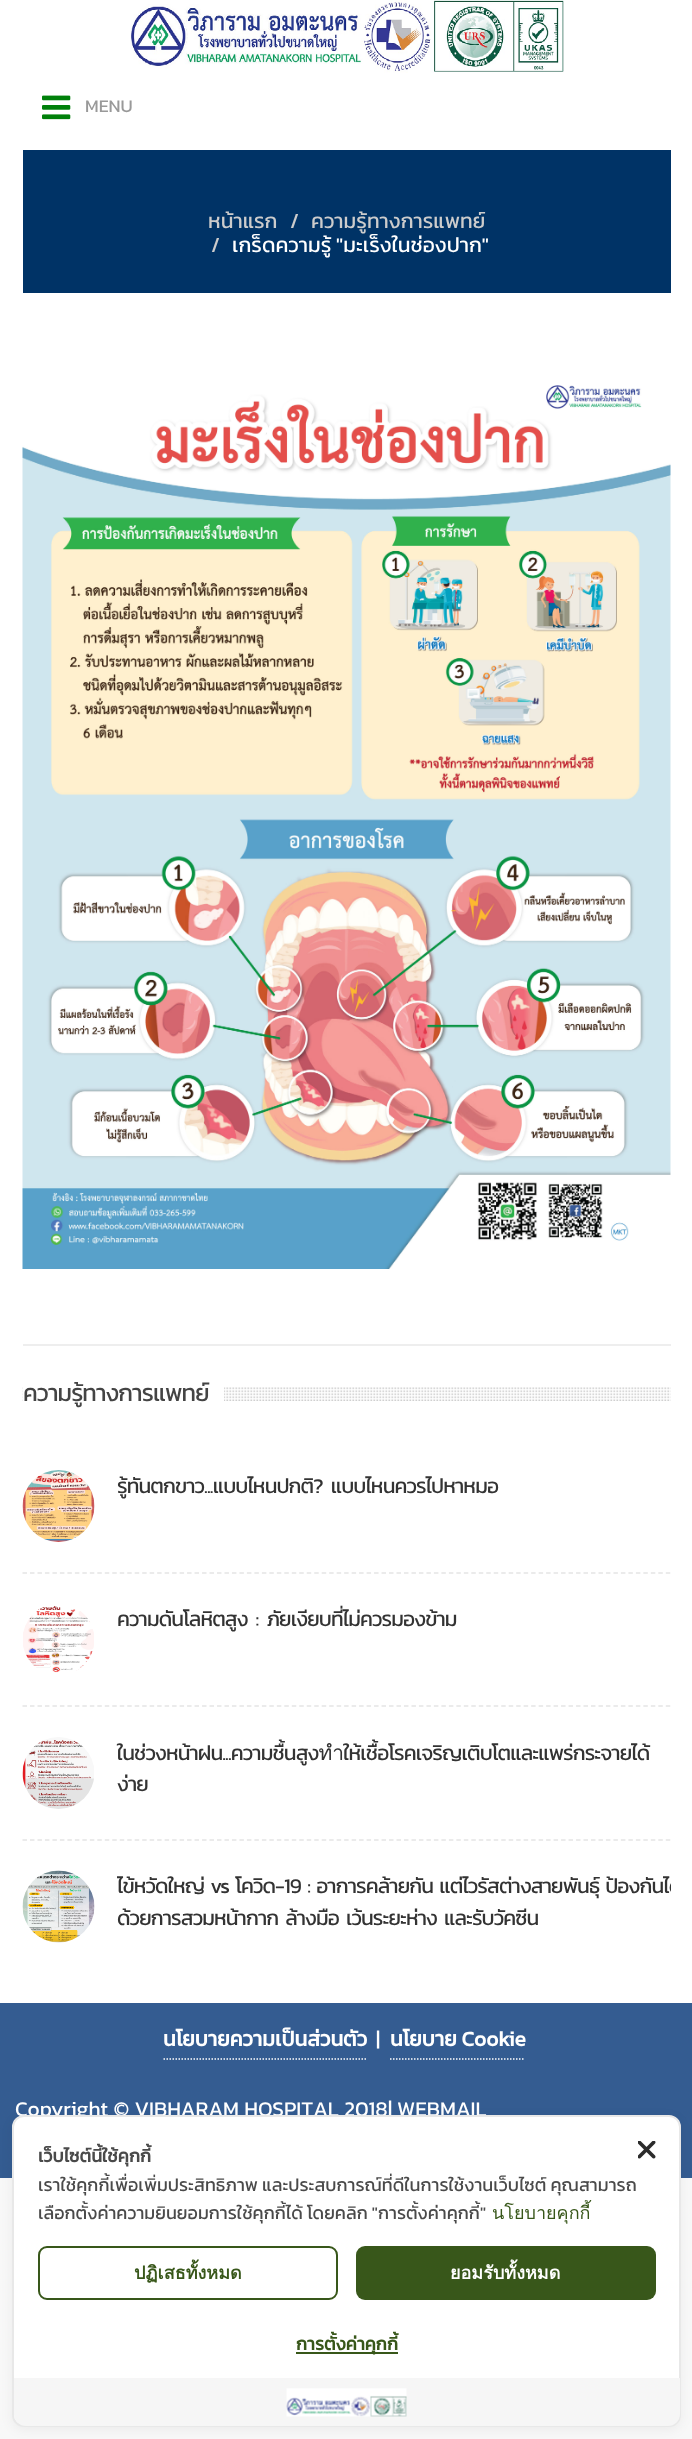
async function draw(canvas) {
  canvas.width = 692
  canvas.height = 2439
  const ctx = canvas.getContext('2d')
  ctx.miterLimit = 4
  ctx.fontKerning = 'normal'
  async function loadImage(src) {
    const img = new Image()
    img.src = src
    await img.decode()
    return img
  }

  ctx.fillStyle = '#f8f8f8'
  ctx.fillRect(0, 0, 692, 2439)
  ctx.fillStyle = '#fff'
  ctx.fillRect(0, 0, 692, 2003)
  ctx.drawImage(await loadImage('image0.png'), 130, 0, 434, 73)
  ctx.drawImage(await loadImage('image1.png'), 42, 95, 29, 25)
  ctx.font = '18px Kanit'
  ctx.fillStyle = '#999'
  ctx.fillText('MENU', 85, 112)
  ctx.fillStyle = '#036'
  ctx.fillRect(23, 150, 648, 143)
  ctx.font = '21px Kanit'
  ctx.fillStyle = '#ccc'
  ctx.fillText('หน้าแรก', 208, 228)
  ctx.fillText('/', 290, 228)
  ctx.fillText('ความรู้ทางการแพทย์', 311, 228)
  ctx.fillText('/', 211, 252)
  ctx.fillStyle = '#fff'
  ctx.fillText('เกร็ดความรู้ "มะเร็งในช่องปาก"', 232, 252)
  ctx.fillStyle = '#eee'
  ctx.fillRect(23, 1344, 648, 2)
  ctx.drawImage(await loadImage('image2.png'), 22, 385, 649, 884)
  ctx.drawImage(await loadImage('image3.png'), 22, 1387, 649, 14)
  ctx.fillStyle = '#fff'
  ctx.fillRect(23, 1387, 201, 14)
  ctx.letterSpacing = '-0.9px'
  ctx.font = '24px Kanit'
  ctx.fillStyle = '#444'
  ctx.fillText('ความรู้ทางการแพทย์', 23, 1401)
  ctx.drawImage(await loadImage('image4.png'), 22, 1470, 73, 72)
  ctx.save()
  ctx.beginPath()
  ctx.rect(117, 1470, 554, 32)
  ctx.clip()
  ctx.wordSpacing = '4px'
  ctx.font = '21px Kanit'
  ctx.fillStyle = '#333'
  ctx.fillText('รู้ทันตกขาว...แบบไหนปกติ? แบบไหนควรไปหาหมอ', 117, 1493)
  ctx.restore()
  ctx.beginPath()
  ctx.moveTo(22.5, 1573)
  ctx.lineTo(670.5, 1573)
  ctx.strokeStyle = '#e5e5e5'
  ctx.lineWidth = 1.5
  ctx.setLineDash([4.5, 2.98])
  ctx.stroke()
  ctx.drawImage(await loadImage('image5.png'), 23, 1606, 71, 67)
  ctx.wordSpacing = '4px'
  ctx.font = '21px Kanit'
  ctx.fillStyle = '#333'
  ctx.fillText('ความดันโลหิตสูง : ภัยเงียบที่ไม่ควรมองข้าม', 117, 1626)
  ctx.beginPath()
  ctx.moveTo(22.5, 1706)
  ctx.lineTo(670.5, 1706)
  ctx.stroke()
  ctx.drawImage(await loadImage('image6.png'), 22, 1737, 72, 72)
  ctx.wordSpacing = '0px'
  ctx.fillText('ในช่วงหน้าฝน...ความชื้นสูงทำให้เชื้อโรคเจริญเติบโตและแพร่กระจายได้', 117, 1760)
  ctx.save()
  ctx.beginPath()
  ctx.rect(117, 1737, 554, 63)
  ctx.clip()
  ctx.fillText('ง่าย', 117, 1791)
  ctx.restore()
  ctx.beginPath()
  ctx.moveTo(22.5, 1840)
  ctx.lineTo(670.5, 1840)
  ctx.stroke()
  ctx.drawImage(await loadImage('image7.png'), 22, 1870, 73, 73)
  ctx.save()
  ctx.beginPath()
  ctx.rect(117, 1871, 554, 63)
  ctx.clip()
  ctx.wordSpacing = '2.25px'
  ctx.fillText('ไข้หวัดใหญ่ vs โควิด-19 : อาการคล้ายกัน แต่ไวรัสต่างสายพันธุ์ ป้องกันได้', 117, 1893)
  ctx.wordSpacing = '3px'
  ctx.fillText('ด้วยการสวมหน้ากาก ล้างมือ เว้นระยะห่าง และรับวัคซีน', 117, 1925)
  ctx.restore()
  ctx.fillStyle = '#345c91'
  ctx.fillRect(0, 2003, 692, 175)
  ctx.beginPath()
  ctx.moveTo(163.5, 2059)
  ctx.lineTo(367.5, 2059)
  ctx.strokeStyle = '#fff'
  ctx.setLineDash([1.5, 1.5])
  ctx.stroke()
  ctx.letterSpacing = '0px'
  ctx.font = 'bold 21px Kanit'
  ctx.fillStyle = '#fff'
  ctx.fillText('นโยบายความเป็นส่วนตัว', 163, 2046)
  ctx.font = '21px Kanit'
  ctx.fillText('|', 376, 2046)
  ctx.beginPath()
  ctx.moveTo(390, 2059)
  ctx.lineTo(525, 2059)
  ctx.stroke()
  ctx.font = 'bold 21px Kanit'
  ctx.fillText('นโยบาย Cookie', 390, 2046)
  ctx.wordSpacing = '0.5px'
  ctx.font = '21px Kanit'
  ctx.fillText('Copyright © VIBHARAM HOSPITAL 2018', 15, 2116)
  ctx.wordSpacing = '0px'
  ctx.fillText('| WEBMAIL', 388, 2116)
  ctx.fillStyle = '#0000000d'
  ctx.filter = 'blur(6px)'
  ctx.beginPath()
  ctx.roundRect(12, 2118, 669, 312, 12)
  ctx.fill()
  ctx.filter = 'none'
  ctx.fillStyle = '#fff'
  ctx.beginPath()
  ctx.roundRect(13, 2116, 667, 310, 11)
  ctx.fill()
  ctx.strokeStyle = '#e8e8e8'
  ctx.lineWidth = 2
  ctx.setLineDash([])
  ctx.stroke()
  ctx.font = 'bold 18px Kanit'
  ctx.fillStyle = '#4a4a4a'
  ctx.fillText('เว็บไซต์นี้ใช้คุกกี้', 38, 2162)
  ctx.font = '18px Kanit'
  ctx.fillText('เราใช้คุกกี้เพื่อเพิ่มประสิทธิภาพ และประสบการณ์ที่ดีในการใช้งานเว็บไซต์ คุณสามารถ', 38, 2191)
  ctx.fillText('เลือกตั้งค่าความยินยอมการใช้คุกกี้ได้ โดยคลิก "การตั้งค่าคุกกี้"', 38, 2219)
  ctx.font = '18px Loma'
  ctx.fillStyle = '#38571a'
  ctx.fillText('นโยบายคุกกี้', 492, 2219)
  ctx.beginPath()
  ctx.roundRect(39, 2247, 298, 52, 8)
  ctx.strokeStyle = '#38571a'
  ctx.stroke()
  ctx.font = 'bold 18px Loma'
  ctx.fillText('ปฏิเสธทั้งหมด', 134, 2279)
  ctx.beginPath()
  ctx.roundRect(356, 2246, 300, 54, 9)
  ctx.fill()
  ctx.fillStyle = '#fff'
  ctx.fillText('ยอมรับทั้งหมด', 450, 2279)
  ctx.fillStyle = '#38571a'
  ctx.fillRect(296, 2352, 102, 2)
  ctx.font = 'bold 18px Kanit'
  ctx.fillText('การตั้งค่าคุกกี้', 296, 2350)
  ctx.drawImage(await loadImage('image8.png'), 638, 2141, 18, 18)
  ctx.fillStyle = '#f6f6f6'
  ctx.beginPath()
  ctx.roundRect(14, 2378, 666, 48, [0, 0, 12, 12])
  ctx.fill()
  ctx.drawImage(await loadImage('image9.png'), 286, 2388, 121, 29)
}

draw(document.querySelector('canvas'))
